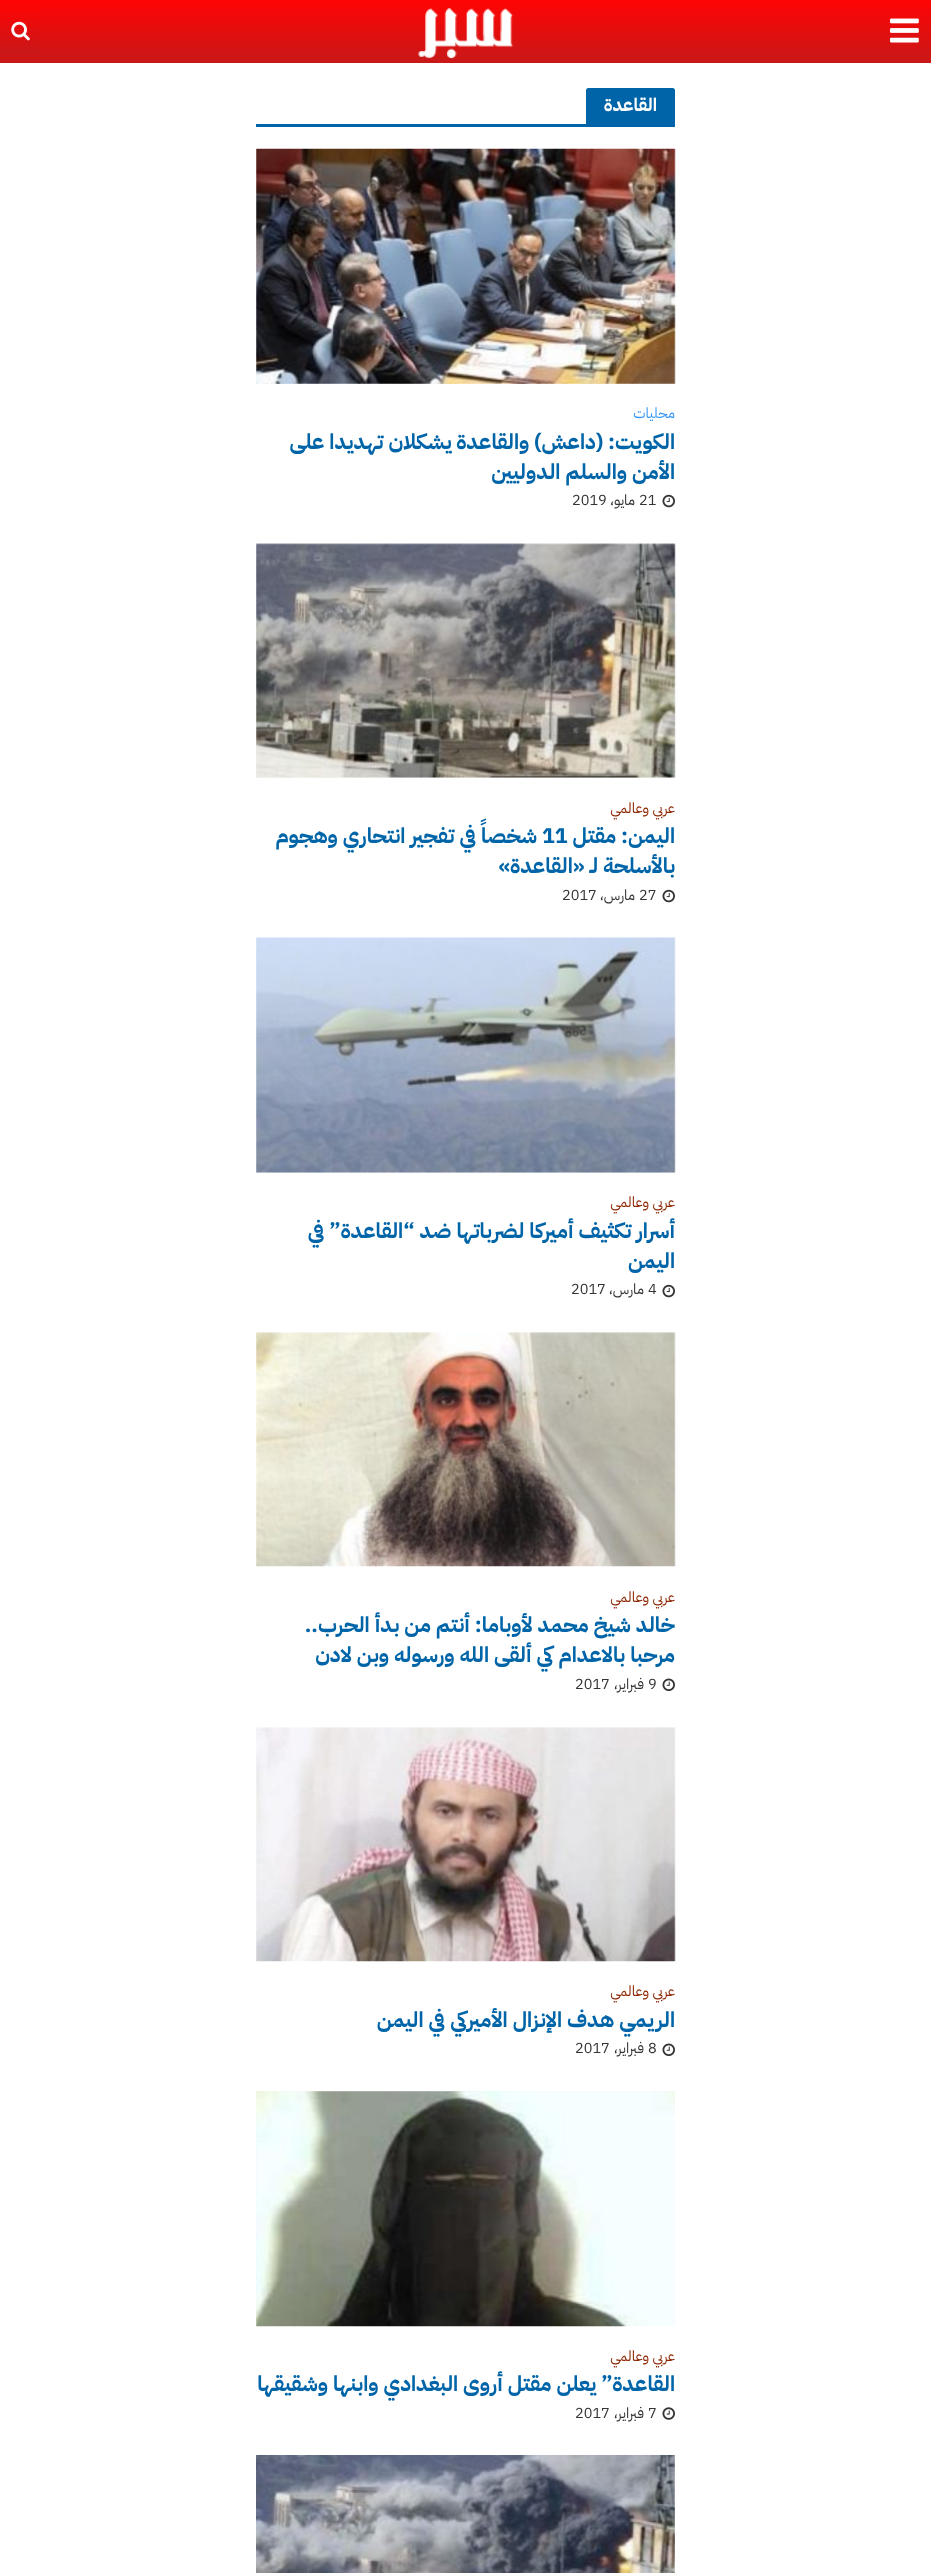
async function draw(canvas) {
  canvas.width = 931
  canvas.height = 2573
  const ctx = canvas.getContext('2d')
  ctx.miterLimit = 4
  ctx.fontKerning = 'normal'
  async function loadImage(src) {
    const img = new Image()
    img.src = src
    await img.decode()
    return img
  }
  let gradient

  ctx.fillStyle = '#fff'
  ctx.fillRect(0, 0, 931, 2573)
  gradient = ctx.createLinearGradient(466, 63, 466, 0)
  gradient.addColorStop(0, '#c81818')
  gradient.addColorStop(1, '#ff0404')
  ctx.fillStyle = gradient
  ctx.fillRect(0, 0, 931, 63)
  ctx.drawImage(await loadImage('image0.png'), 890, 18, 29, 25)
  ctx.drawImage(await loadImage('image1.png'), 418, 7, 96, 52)
  gradient = ctx.createLinearGradient(20, 54, 20, 3.8)
  gradient.addColorStop(0, '#c81818')
  gradient.addColorStop(1, '#ff0404')
  ctx.fillStyle = gradient
  ctx.fillRect(0, 4, 40, 50)
  ctx.drawImage(await loadImage('image2.png'), 11, 21, 19, 20)
  ctx.fillStyle = '#0065a8'
  ctx.beginPath()
  ctx.roundRect(586, 88, 89, 36, [2.5, 2.5, 0, 0])
  ctx.fill()
  ctx.direction = 'rtl'
  ctx.font = 'bold 18px IBM Plex Sans Arabic'
  ctx.fillStyle = '#fff'
  ctx.fillText('القاعدة', 657, 111)
  ctx.fillStyle = '#0065a8'
  ctx.fillRect(256, 124, 419, 3)
  ctx.fillStyle = '#f3f3f3'
  ctx.fillRect(256, 149, 419, 235)
  ctx.drawImage(await loadImage('image3.png'), 256, 148, 420, 236)
  ctx.font = '14.5px IBM Plex Sans Arabic'
  ctx.fillStyle = '#3898f7'
  ctx.fillText('محليات', 675, 418)
  ctx.font = 'bold 21.25px IBM Plex Sans Arabic'
  ctx.fillStyle = '#0065a8'
  ctx.fillText('الكويت: (داعش) والقاعدة يشكلان تهديدا على', 675, 449)
  ctx.fillText('الأمن والسلم الدوليين', 675, 479)
  ctx.drawImage(await loadImage('image4.png'), 662, 494, 13, 14)
  ctx.direction = 'ltr'
  ctx.font = '14.5px IBM Plex Sans Arabic'
  ctx.fillStyle = '#353434'
  ctx.fillText('21', 639, 505)
  ctx.direction = 'rtl'
  ctx.fillText('مايو،', 635, 505)
  ctx.direction = 'ltr'
  ctx.fillText('2019', 572, 505)
  ctx.fillStyle = '#f3f3f3'
  ctx.fillRect(256, 544, 419, 234)
  ctx.drawImage(await loadImage('image5.png'), 256, 543, 420, 235)
  ctx.direction = 'rtl'
  ctx.fillStyle = '#8c2500'
  ctx.fillText('عربي وعالمي', 675, 813)
  ctx.font = 'bold 21.25px IBM Plex Sans Arabic'
  ctx.fillStyle = '#0065a8'
  ctx.fillText('اليمن: مقتل', 675, 843)
  ctx.direction = 'ltr'
  ctx.fillText('11', 542, 843)
  ctx.direction = 'rtl'
  ctx.fillText('شخصاً في تفجير انتحاري وهجوم', 537, 843)
  ctx.fillText('بالأسلحة لـ «القاعدة»', 675, 873)
  ctx.drawImage(await loadImage('image4.png'), 662, 889, 13, 14)
  ctx.direction = 'ltr'
  ctx.font = '14.5px IBM Plex Sans Arabic'
  ctx.fillStyle = '#353434'
  ctx.fillText('27', 639, 900)
  ctx.direction = 'rtl'
  ctx.fillText('مارس،', 635, 900)
  ctx.direction = 'ltr'
  ctx.fillText('2017', 562, 900)
  ctx.fillStyle = '#f3f3f3'
  ctx.fillRect(256, 938, 419, 235)
  ctx.drawImage(await loadImage('image6.png'), 256, 937, 420, 236)
  ctx.direction = 'rtl'
  ctx.fillStyle = '#8c2500'
  ctx.fillText('عربي وعالمي', 675, 1207)
  ctx.font = 'bold 21.25px IBM Plex Sans Arabic'
  ctx.fillStyle = '#0065a8'
  ctx.fillText('أسرار تكثيف أميركا لضرباتها ضد “القاعدة” في', 675, 1238)
  ctx.fillText('اليمن', 675, 1268)
  ctx.drawImage(await loadImage('image4.png'), 662, 1284, 13, 14)
  ctx.direction = 'ltr'
  ctx.font = '14.5px IBM Plex Sans Arabic'
  ctx.fillStyle = '#353434'
  ctx.fillText('4', 648, 1294)
  ctx.direction = 'rtl'
  ctx.fillText('مارس،', 644, 1294)
  ctx.direction = 'ltr'
  ctx.fillText('2017', 571, 1294)
  ctx.drawImage(await loadImage('image7.png'), 256, 1332, 420, 235)
  ctx.direction = 'rtl'
  ctx.fillStyle = '#8c2500'
  ctx.fillText('عربي وعالمي', 675, 1602)
  ctx.font = 'bold 21.25px IBM Plex Sans Arabic'
  ctx.fillStyle = '#0065a8'
  ctx.fillText('خالد شيخ محمد لأوباما: أنتم من بدأ الحرب..', 675, 1632)
  ctx.fillText('مرحبا بالاعدام كي ألقى الله ورسوله وبن لادن', 675, 1662)
  ctx.drawImage(await loadImage('image8.png'), 662, 1678, 13, 13)
  ctx.direction = 'ltr'
  ctx.font = '14.5px IBM Plex Sans Arabic'
  ctx.fillStyle = '#353434'
  ctx.fillText('9', 648, 1689)
  ctx.direction = 'rtl'
  ctx.fillText('فبراير،', 644, 1689)
  ctx.direction = 'ltr'
  ctx.fillText('2017', 575, 1689)
  ctx.drawImage(await loadImage('image9.png'), 256, 1727, 420, 235)
  ctx.direction = 'rtl'
  ctx.fillStyle = '#8c2500'
  ctx.fillText('عربي وعالمي', 675, 1996)
  ctx.font = 'bold 21.25px IBM Plex Sans Arabic'
  ctx.fillStyle = '#0065a8'
  ctx.fillText('الريمي هدف الإنزال الأميركي في اليمن', 675, 2027)
  ctx.drawImage(await loadImage('image8.png'), 662, 2043, 13, 13)
  ctx.direction = 'ltr'
  ctx.font = '14.5px IBM Plex Sans Arabic'
  ctx.fillStyle = '#353434'
  ctx.fillText('8', 648, 2053)
  ctx.direction = 'rtl'
  ctx.fillText('فبراير،', 644, 2053)
  ctx.direction = 'ltr'
  ctx.fillText('2017', 575, 2053)
  ctx.fillStyle = '#f3f3f3'
  ctx.fillRect(256, 2091, 419, 235)
  ctx.drawImage(await loadImage('image10.png'), 256, 2091, 419, 236)
  ctx.direction = 'rtl'
  ctx.fillStyle = '#8c2500'
  ctx.fillText('عربي وعالمي', 675, 2361)
  ctx.font = 'bold 21.25px IBM Plex Sans Arabic'
  ctx.fillStyle = '#0065a8'
  ctx.fillText('القاعدة” يعلن مقتل أروى البغدادي وابنها وشقيقها', 675, 2391)
  ctx.drawImage(await loadImage('image11.png'), 662, 2407, 13, 13)
  ctx.direction = 'ltr'
  ctx.font = '14.5px IBM Plex Sans Arabic'
  ctx.fillStyle = '#353434'
  ctx.fillText('7', 648, 2418)
  ctx.direction = 'rtl'
  ctx.fillText('فبراير،', 644, 2418)
  ctx.direction = 'ltr'
  ctx.fillText('2017', 575, 2418)
  ctx.drawImage(await loadImage('image12.png'), 256, 2455, 419, 118)
}

draw(document.querySelector('canvas'))
